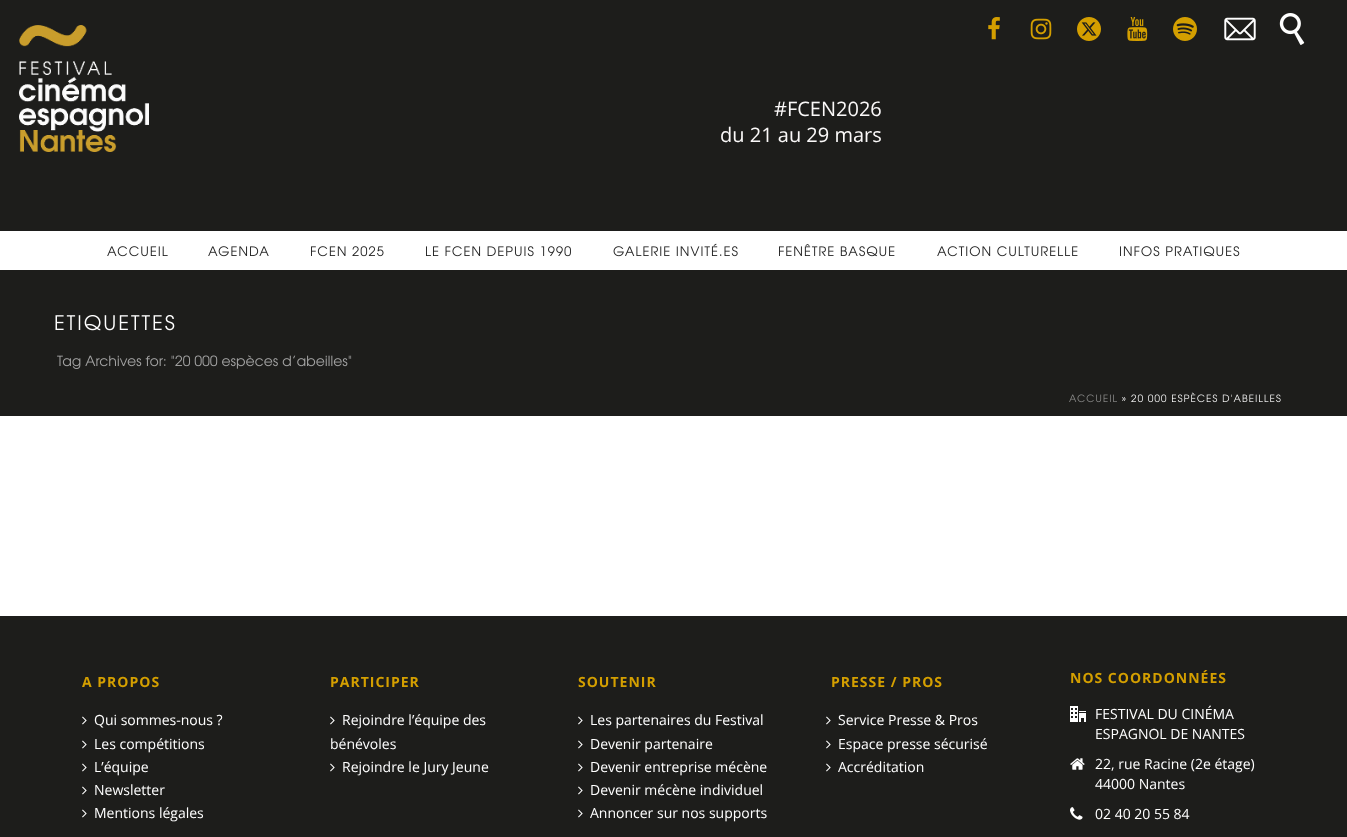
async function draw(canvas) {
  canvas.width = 1347
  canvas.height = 837
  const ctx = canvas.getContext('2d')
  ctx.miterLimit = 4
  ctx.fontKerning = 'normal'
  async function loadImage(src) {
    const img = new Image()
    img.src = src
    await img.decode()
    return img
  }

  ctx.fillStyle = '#fff'
  ctx.fillRect(0, 0, 1347, 837)
  ctx.fillStyle = '#1d1d1b'
  ctx.fillRect(0, 0, 1347, 231)
  ctx.drawImage(await loadImage('image0.png'), 19, 25, 130, 127)
  ctx.font = '20px Open Sans'
  ctx.fillStyle = '#fbf9f9'
  ctx.fillText('#FCEN2026', 774, 116)
  ctx.fillText('du 21 au 29 mars', 720, 142)
  ctx.drawImage(await loadImage('image1.png'), 988, 17, 12, 23)
  ctx.drawImage(await loadImage('image2.png'), 1030, 18, 22, 22)
  ctx.drawImage(await loadImage('image3.png'), 1077, 17, 24, 24)
  ctx.drawImage(await loadImage('image4.png'), 1127, 17, 21, 24)
  ctx.drawImage(await loadImage('image5.png'), 1173, 17, 24, 24)
  ctx.drawImage(await loadImage('image6.png'), 1224, 17, 32, 24)
  ctx.drawImage(await loadImage('image7.png'), 1279, 13, 26, 32)
  ctx.drawImage(await loadImage('image8.png'), 107, 246, 61, 11)
  ctx.drawImage(await loadImage('image9.png'), 208, 246, 61, 11)
  ctx.drawImage(await loadImage('image10.png'), 311, 246, 73, 11)
  ctx.drawImage(await loadImage('image11.png'), 426, 246, 145, 11)
  ctx.drawImage(await loadImage('image12.png'), 613, 243, 125, 14)
  ctx.drawImage(await loadImage('image13.png'), 779, 244, 116, 13)
  ctx.drawImage(await loadImage('image14.png'), 937, 246, 141, 11)
  ctx.drawImage(await loadImage('image15.png'), 1120, 246, 120, 11)
  ctx.fillStyle = '#1d1d1b'
  ctx.fillRect(0, 270, 1347, 146)
  ctx.drawImage(await loadImage('image16.png'), 55, 315, 120, 16)
  ctx.drawImage(await loadImage('image17.png'), 57, 355, 295, 14)
  ctx.drawImage(await loadImage('image18.png'), 1069, 394, 48, 9)
  ctx.drawImage(await loadImage('image19.png'), 1122, 397, 4, 4)
  ctx.drawImage(await loadImage('image20.png'), 1131, 392, 150, 11)
  ctx.fillRect(0, 616, 1347, 221)
  ctx.letterSpacing = '1px'
  ctx.font = 'bold 14px Open Sans'
  ctx.fillStyle = '#d49f00'
  ctx.fillText('A PROPOS', 82, 687)
  ctx.drawImage(await loadImage('image21.png'), 82, 716, 5, 9)
  ctx.letterSpacing = '0px'
  ctx.font = '14px Open Sans'
  ctx.fillStyle = '#fff'
  ctx.fillText('Qui sommes-nous ?', 94, 725)
  ctx.drawImage(await loadImage('image21.png'), 82, 740, 5, 9)
  ctx.fillText('Les compétitions', 94, 749)
  ctx.drawImage(await loadImage('image21.png'), 82, 763, 5, 9)
  ctx.fillText('L’équipe', 94, 772)
  ctx.drawImage(await loadImage('image21.png'), 82, 786, 5, 9)
  ctx.fillText('Newsletter', 94, 795)
  ctx.drawImage(await loadImage('image21.png'), 82, 809, 5, 9)
  ctx.fillText('Mentions légales', 94, 818)
  ctx.letterSpacing = '1px'
  ctx.font = 'bold 14px Open Sans'
  ctx.fillStyle = '#d49f00'
  ctx.fillText('PARTICIPER', 330, 687)
  ctx.drawImage(await loadImage('image21.png'), 330, 716, 5, 9)
  ctx.letterSpacing = '0px'
  ctx.font = '14px Open Sans'
  ctx.fillStyle = '#fff'
  ctx.fillText('Rejoindre l’équipe des', 342, 725)
  ctx.fillText('bénévoles', 330, 749)
  ctx.drawImage(await loadImage('image21.png'), 330, 763, 5, 9)
  ctx.fillText('Rejoindre le Jury Jeune', 342, 772)
  ctx.letterSpacing = '1px'
  ctx.font = 'bold 14px Open Sans'
  ctx.fillStyle = '#d49f00'
  ctx.fillText('SOUTENIR', 578, 687)
  ctx.drawImage(await loadImage('image21.png'), 578, 716, 5, 9)
  ctx.letterSpacing = '0px'
  ctx.font = '14px Open Sans'
  ctx.fillStyle = '#fff'
  ctx.fillText('Les partenaires du Festival', 590, 725)
  ctx.drawImage(await loadImage('image21.png'), 578, 740, 5, 9)
  ctx.fillText('Devenir partenaire', 590, 749)
  ctx.drawImage(await loadImage('image21.png'), 578, 763, 5, 9)
  ctx.fillText('Devenir entreprise mécène', 590, 772)
  ctx.drawImage(await loadImage('image21.png'), 578, 786, 5, 9)
  ctx.fillText('Devenir mécène individuel', 590, 795)
  ctx.drawImage(await loadImage('image21.png'), 578, 809, 5, 9)
  ctx.fillText('Annoncer sur nos supports', 590, 818)
  ctx.letterSpacing = '1px'
  ctx.font = 'bold 14px Open Sans'
  ctx.fillStyle = '#d49f00'
  ctx.fillText('PRESSE / PROS', 831, 687)
  ctx.drawImage(await loadImage('image21.png'), 826, 716, 5, 9)
  ctx.letterSpacing = '0px'
  ctx.font = '14px Open Sans'
  ctx.fillStyle = '#fff'
  ctx.fillText('Service Presse & Pros', 838, 725)
  ctx.drawImage(await loadImage('image21.png'), 826, 740, 5, 9)
  ctx.fillText('Espace presse sécurisé', 838, 749)
  ctx.drawImage(await loadImage('image21.png'), 826, 763, 5, 9)
  ctx.fillText('Accréditation', 838, 772)
  ctx.letterSpacing = '1px'
  ctx.font = 'bold 14px Open Sans'
  ctx.fillStyle = '#d49f00'
  ctx.fillText('NOS COORDONNÉES', 1070, 683)
  ctx.drawImage(await loadImage('image22.png'), 1070, 706, 16, 16)
  ctx.letterSpacing = '0px'
  ctx.font = '14px Open Sans'
  ctx.fillStyle = '#fff'
  ctx.fillText('FESTIVAL DU CINÉMA', 1095, 719)
  ctx.fillText('ESPAGNOL DE NANTES', 1095, 739)
  ctx.drawImage(await loadImage('image23.png'), 1070, 758, 15, 12)
  ctx.fillText('22, rue Racine (2e étage)', 1095, 769)
  ctx.fillText('44000 Nantes', 1095, 789)
  ctx.drawImage(await loadImage('image24.png'), 1070, 807, 13, 13)
  ctx.fillText('02 40 20 55 84', 1095, 819)
}

draw(document.querySelector('canvas'))
